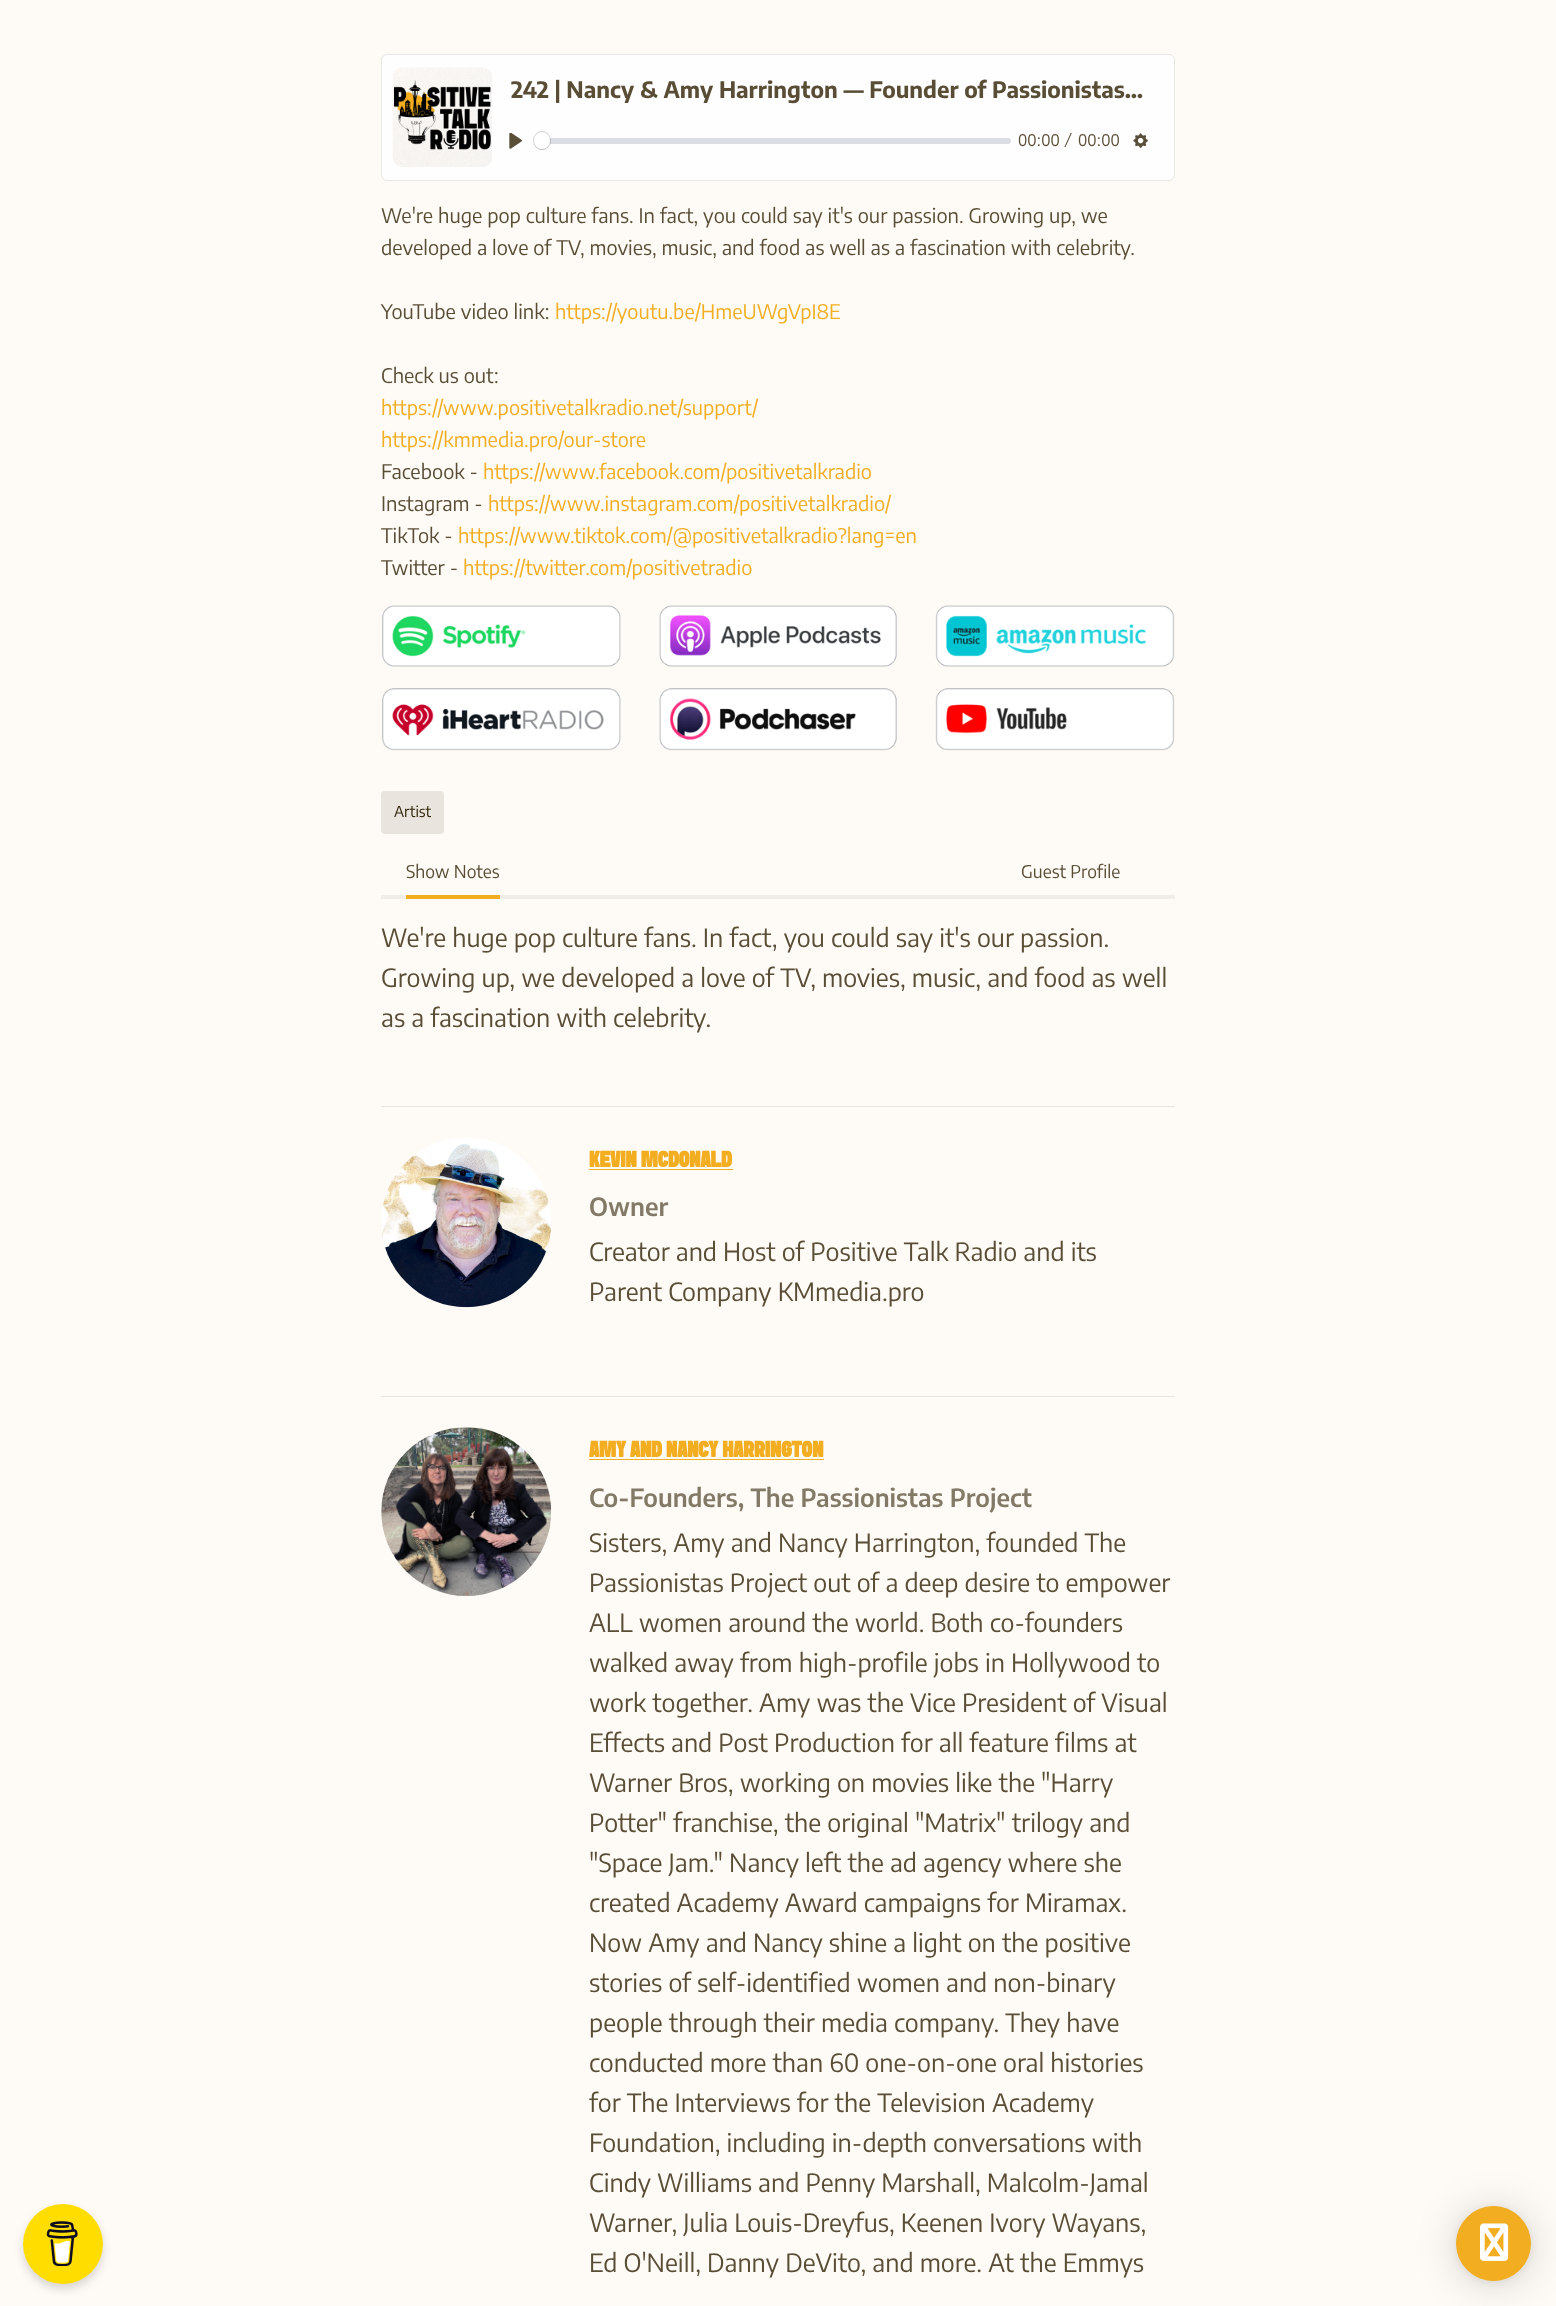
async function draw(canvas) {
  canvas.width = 1556
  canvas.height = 2306
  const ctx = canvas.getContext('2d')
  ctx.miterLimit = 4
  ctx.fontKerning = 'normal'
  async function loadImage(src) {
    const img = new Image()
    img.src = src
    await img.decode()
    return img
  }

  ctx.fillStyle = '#fefbf6'
  ctx.fillRect(0, 0, 1556, 2306)
  ctx.fillStyle = '#00000026'
  ctx.filter = 'blur(5px)'
  ctx.beginPath()
  ctx.roundRect(23, 2209, 80, 80, 40)
  ctx.fill()
  ctx.filter = 'none'
  ctx.fillStyle = '#fd0'
  ctx.beginPath()
  ctx.arc(63, 2244, 40, 0, 2 * Math.PI)
  ctx.fill()
  ctx.drawImage(await loadImage('image0.png'), 46, 2221, 32, 45)
  ctx.fillStyle = '#fefefe'
  ctx.beginPath()
  ctx.roundRect(381.5, 54.5, 793, 126, 5.5)
  ctx.fill()
  ctx.strokeStyle = '#e9e8e5'
  ctx.stroke()
  ctx.drawImage(await loadImage('image1.png'), 392, 67, 100, 100)
  ctx.font = 'bold 22.5px Encode Sans Condensed'
  ctx.fillStyle = '#594d36'
  ctx.fillText('242 | Nancy & Amy Harrington — Founder of Passionistas…', 511, 98)
  ctx.drawImage(await loadImage('image2.png'), 509, 133, 13, 16)
  ctx.fillStyle = '#c1c8d199'
  ctx.beginPath()
  ctx.roundRect(534, 138, 477, 6, 3)
  ctx.fill()
  ctx.beginPath()
  ctx.roundRect(533.5, 131.5, 17, 18, 8.5)
  ctx.strokeStyle = '#23282f33'
  ctx.stroke()
  ctx.fillStyle = '#23282f26'
  ctx.filter = 'blur(0.5px)'
  ctx.beginPath()
  ctx.roundRect(534, 134, 16, 16, 8)
  ctx.fill()
  ctx.filter = 'none'
  ctx.fillStyle = '#fff'
  ctx.beginPath()
  ctx.arc(542, 141, 8, 0, 2 * Math.PI)
  ctx.fill()
  ctx.font = '16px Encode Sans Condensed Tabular'
  ctx.fillStyle = '#594d36'
  ctx.fillText('00:00', 1018, 146)
  ctx.font = '16px Encode Sans Condensed'
  ctx.fillText('⁄', 1067, 146)
  ctx.font = '16px Encode Sans Condensed Tabular'
  ctx.fillText('00:00', 1078, 146)
  ctx.drawImage(await loadImage('image3.png'), 1133, 133, 15, 15)
  ctx.font = '20px Encode Sans Condensed'
  ctx.fillText('We\'re huge pop culture fans. In fact, you could say it\'s our passion. Growing up, we', 381, 223)
  ctx.fillText('developed a love of TV, movies, music, and food as well as a fascination with celebrity.', 381, 255)
  ctx.fillText('YouTube video link:', 381, 319)
  ctx.fillStyle = '#f2ad21'
  ctx.fillText('https://youtu.be/HmeUWgVpI8E', 555, 319)
  ctx.fillStyle = '#594d36'
  ctx.fillText('Check us out:', 381, 383)
  ctx.fillStyle = '#f2ad21'
  ctx.fillText('https://www.positivetalkradio.net/support/', 381, 415)
  ctx.fillText('https://kmmedia.pro/our-store', 381, 447)
  ctx.fillStyle = '#594d36'
  ctx.fillText('Facebook -', 381, 479)
  ctx.fillStyle = '#f2ad21'
  ctx.fillText('https://www.facebook.com/positivetalkradio', 483, 479)
  ctx.fillStyle = '#594d36'
  ctx.fillText('Instagram -', 381, 511)
  ctx.fillStyle = '#f2ad21'
  ctx.fillText('https://www.instagram.com/positivetalkradio/', 488, 511)
  ctx.fillStyle = '#594d36'
  ctx.fillText('TikTok -', 381, 543)
  ctx.fillStyle = '#f2ad21'
  ctx.fillText('https://www.tiktok.com/@positivetalkradio?lang=en', 458, 543)
  ctx.fillStyle = '#594d36'
  ctx.fillText('Twitter -', 381, 575)
  ctx.fillStyle = '#f2ad21'
  ctx.fillText('https://twitter.com/positivetradio', 463, 575)
  ctx.drawImage(await loadImage('image4.png'), 382, 605, 239, 62)
  ctx.drawImage(await loadImage('image5.png'), 659, 605, 238, 62)
  ctx.drawImage(await loadImage('image6.png'), 935, 605, 240, 62)
  ctx.drawImage(await loadImage('image7.png'), 382, 688, 239, 63)
  ctx.drawImage(await loadImage('image8.png'), 659, 688, 238, 63)
  ctx.drawImage(await loadImage('image9.png'), 935, 688, 240, 63)
  ctx.fillStyle = '#e9e5de'
  ctx.beginPath()
  ctx.roundRect(381, 791, 63, 43, 4)
  ctx.fill()
  ctx.font = '15px Encode Sans Condensed'
  ctx.fillStyle = '#302206'
  ctx.fillText('Artist', 394, 817)
  ctx.fillStyle = '#f1eeea'
  ctx.fillRect(381, 895, 794, 4)
  ctx.fillStyle = '#f2ad21'
  ctx.fillRect(406, 895, 94, 4)
  ctx.font = '17.5px Encode Sans Condensed'
  ctx.fillStyle = '#594d36'
  ctx.fillText('Show Notes', 406, 878)
  ctx.fillText('Guest Profile', 1021, 878)
  ctx.font = '25px Encode Sans Condensed'
  ctx.fillText('We\'re huge pop culture fans. In fact, you could say it\'s our passion.', 381, 947)
  ctx.fillText('Growing up, we developed a love of TV, movies, music, and food as well', 381, 987)
  ctx.fillText('as a fascination with celebrity.', 381, 1027)
  ctx.fillStyle = '#e9e5de'
  ctx.fillRect(381, 1106, 794, 1)
  ctx.drawImage(await loadImage('image10.png'), 381, 1137, 170, 171)
  ctx.font = 'bold 22.5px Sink'
  ctx.fillStyle = '#f2ad21'
  ctx.fillText('KEVIN MCDONALD', 589, 1167)
  ctx.fillRect(589, 1169, 144, 1)
  ctx.font = '600 25px Encode Sans Condensed'
  ctx.fillStyle = '#827966'
  ctx.fillText('Owner', 589, 1216)
  ctx.font = '25px Encode Sans Condensed'
  ctx.fillStyle = '#594d36'
  ctx.fillText('Creator and Host of Positive Talk Radio and its', 589, 1261)
  ctx.fillText('Parent Company KMmedia.pro', 589, 1301)
  ctx.fillStyle = '#e9e5de'
  ctx.fillRect(381, 1396, 794, 1)
  ctx.drawImage(await loadImage('image11.png'), 381, 1427, 171, 169)
  ctx.font = 'bold 22.5px Sink'
  ctx.fillStyle = '#f2ad21'
  ctx.fillText('AMY AND NANCY HARRINGTON', 589, 1457)
  ctx.fillRect(589, 1459, 235, 1)
  ctx.font = '600 25px Encode Sans Condensed'
  ctx.fillStyle = '#827966'
  ctx.fillText('Co-Founders, The Passionistas Project', 589, 1507)
  ctx.font = '25px Encode Sans Condensed'
  ctx.fillStyle = '#594d36'
  ctx.fillText('Sisters, Amy and Nancy Harrington, founded The', 589, 1552)
  ctx.fillText('Passionistas Project out of a deep desire to empower', 589, 1592)
  ctx.fillText('ALL women around the world. Both co-founders', 589, 1632)
  ctx.fillText('walked away from high-profile jobs in Hollywood to', 589, 1672)
  ctx.fillText('work together. Amy was the Vice President of Visual', 589, 1712)
  ctx.fillText('Effects and Post Production for all feature films at', 589, 1752)
  ctx.fillText('Warner Bros, working on movies like the "Harry', 589, 1792)
  ctx.fillText('Potter" franchise, the original "Matrix" trilogy and', 589, 1832)
  ctx.fillText('"Space Jam." Nancy left the ad agency where she', 589, 1872)
  ctx.fillText('created Academy Award campaigns for Miramax.', 589, 1912)
  ctx.fillText('Now Amy and Nancy shine a light on the positive', 589, 1952)
  ctx.fillText('stories of self-identified women and non-binary', 589, 1992)
  ctx.fillText('people through their media company. They have', 589, 2032)
  ctx.fillText('conducted more than 60 one-on-one oral histories', 589, 2072)
  ctx.fillText('for The Interviews for the Television Academy', 589, 2112)
  ctx.fillText('Foundation, including in-depth conversations with', 589, 2152)
  ctx.fillText('Cindy Williams and Penny Marshall, Malcolm-Jamal', 589, 2192)
  ctx.fillText('Warner, Julia Louis-Dreyfus, Keenen Ivory Wayans,', 589, 2232)
  ctx.fillText('Ed O\'Neill, Danny DeVito, and more. At the Emmys', 589, 2272)
  ctx.fillStyle = '#00000029'
  ctx.filter = 'blur(20px)'
  ctx.beginPath()
  ctx.roundRect(1456, 2209, 75, 75, 37.5)
  ctx.fill()
  ctx.filter = 'none'
  ctx.fillStyle = '#0000000f'
  ctx.filter = 'blur(4px)'
  ctx.beginPath()
  ctx.roundRect(1456, 2208, 75, 75, 37.5)
  ctx.fill()
  ctx.filter = 'none'
  ctx.fillStyle = '#f2ad21'
  ctx.beginPath()
  ctx.arc(1493.5, 2243.5, 37, 0, 2 * Math.PI)
  ctx.fill()
  ctx.strokeStyle = '#f2ad21'
  ctx.stroke()
  ctx.drawImage(await loadImage('image12.png'), 1480, 2223, 29, 38)
}

draw(document.querySelector('canvas'))
